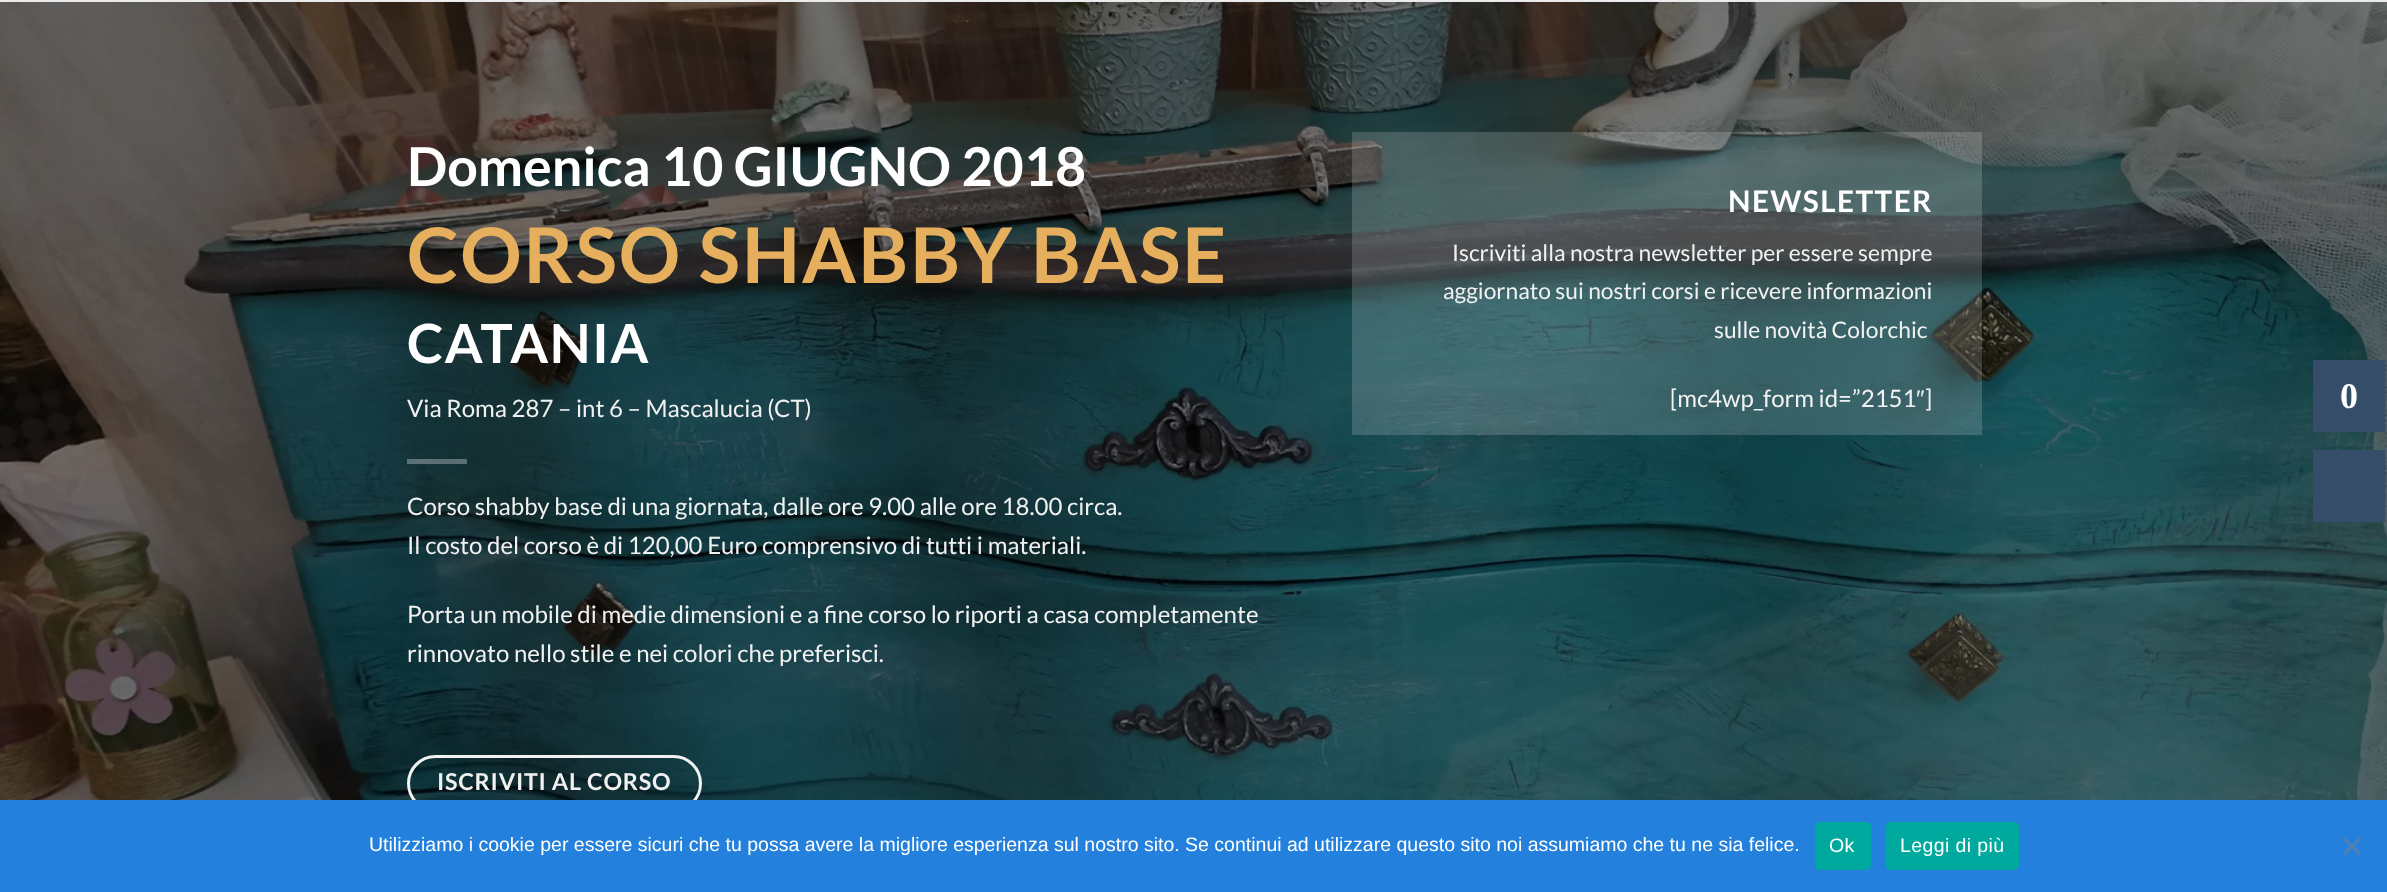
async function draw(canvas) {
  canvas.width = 2387
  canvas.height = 892
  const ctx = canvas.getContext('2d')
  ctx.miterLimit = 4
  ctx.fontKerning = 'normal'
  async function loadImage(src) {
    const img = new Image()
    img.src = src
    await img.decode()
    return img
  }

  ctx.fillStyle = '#fff'
  ctx.fillRect(0, 0, 2387, 892)
  ctx.fillStyle = '#ebebeb'
  ctx.fillRect(0, 0, 2387, 2)
  ctx.drawImage(await loadImage('image0.png'), 0, 2, 2387, 798)
  ctx.font = 'bold 53.75px Lato'
  ctx.fillStyle = '#fff'
  ctx.fillText('Domenica 10 GIUGNO 2018', 407, 186)
  ctx.letterSpacing = '1.9px'
  ctx.font = 'bold 76.75px Lato'
  ctx.fillStyle = '#e6af5e'
  ctx.fillText('CORSO SHABBY BASE', 407, 283)
  ctx.letterSpacing = '1.4px'
  ctx.font = 'bold 54px Lato'
  ctx.fillStyle = '#fff'
  ctx.fillText('CATANIA', 407, 363)
  ctx.letterSpacing = '0px'
  ctx.font = '24px Lato'
  ctx.fillStyle = '#f1f1f1'
  ctx.fillText('Via Roma 287 – int 6 – Mascalucia (CT)', 407, 417)
  ctx.fillStyle = '#ffffff4d'
  ctx.fillRect(407, 459, 60, 5)
  ctx.fillStyle = '#f1f1f1'
  ctx.fillText('Corso shabby base di una giornata, dalle ore 9.00 alle ore 18.00 circa.', 407, 515)
  ctx.fillText('Il costo del corso è di 120,00 Euro comprensivo di tutti i materiali.', 407, 554)
  ctx.fillText('Porta un mobile di medie dimensioni e a fine corso lo riporti a casa completamente', 407, 623)
  ctx.fillText('rinnovato nello stile e nei colori che preferisci.', 407, 662)
  ctx.beginPath()
  ctx.roundRect(408.5, 756.5, 292, 54, 27)
  ctx.strokeStyle = '#f1f1f1'
  ctx.lineWidth = 3
  ctx.stroke()
  ctx.letterSpacing = '0.75px'
  ctx.font = 'bold 23.25px Lato'
  ctx.fillText('ISCRIVITI AL CORSO', 437, 790)
  ctx.fillStyle = '#ffffff2b'
  ctx.fillRect(1352, 132, 630, 303)
  ctx.letterSpacing = '1.4px'
  ctx.font = 'bold 29.75px Lato'
  ctx.fillStyle = '#fff'
  ctx.fillText('NEWSLETTER', 1728, 212)
  ctx.letterSpacing = '0px'
  ctx.font = '22.8px Lato'
  ctx.fillStyle = '#f1f1f1'
  ctx.fillText('Iscriviti alla nostra newsletter per essere sempre', 1452, 261)
  ctx.fillText('aggiornato sui nostri corsi e ricevere informazioni', 1443, 299)
  ctx.fillText('sulle novità Colorchic', 1714, 338)
  ctx.font = '24px Lato'
  ctx.fillText('[mc4wp_form id=”2151', 1670, 407)
  ctx.font = '24px Liberation Sans'
  ctx.fillText('″', 1916, 407)
  ctx.font = '24px Lato'
  ctx.fillText(']', 1925, 407)
  ctx.fillStyle = '#364d6a'
  ctx.fillRect(2313, 360, 72, 72)
  ctx.font = 'bold 36px Liberation Serif'
  ctx.fillStyle = '#fff'
  ctx.fillText('0', 2340, 408)
  ctx.fillStyle = '#364d6a'
  ctx.fillRect(2313, 450, 72, 72)
  ctx.fillStyle = '#2380dd'
  ctx.fillRect(0, 800, 2387, 92)
  ctx.font = '19.5px Liberation Sans'
  ctx.fillStyle = '#fff'
  ctx.fillText('Utilizziamo i cookie per essere sicuri che tu possa avere la migliore esperienza sul nostro sito. Se continui ad utilizzare questo sito noi assumiamo che tu ne sia felice.', 369, 851)
  ctx.fillStyle = '#00a99d'
  ctx.beginPath()
  ctx.roundRect(1815, 822, 56, 48, 5)
  ctx.fill()
  ctx.letterSpacing = '0.4px'
  ctx.fillStyle = '#fff'
  ctx.fillText('Ok', 1829, 852)
  ctx.fillStyle = '#00a99d'
  ctx.beginPath()
  ctx.roundRect(1886, 822, 133, 48, 5)
  ctx.fill()
  ctx.fillStyle = '#fff'
  ctx.fillText('Leggi di più', 1900, 852)
  ctx.fillStyle = '#5280af'
  ctx.beginPath()
  ctx.moveTo(2359, 837.5)
  ctx.lineTo(2361, 839.5)
  ctx.lineTo(2345, 855.5)
  ctx.lineTo(2343, 853.5)
  ctx.closePath()
  ctx.fill()
  ctx.beginPath()
  ctx.moveTo(2343, 839.5)
  ctx.lineTo(2345, 837.5)
  ctx.lineTo(2361, 853.5)
  ctx.lineTo(2359, 855.5)
  ctx.closePath()
  ctx.fill()
}

draw(document.querySelector('canvas'))
